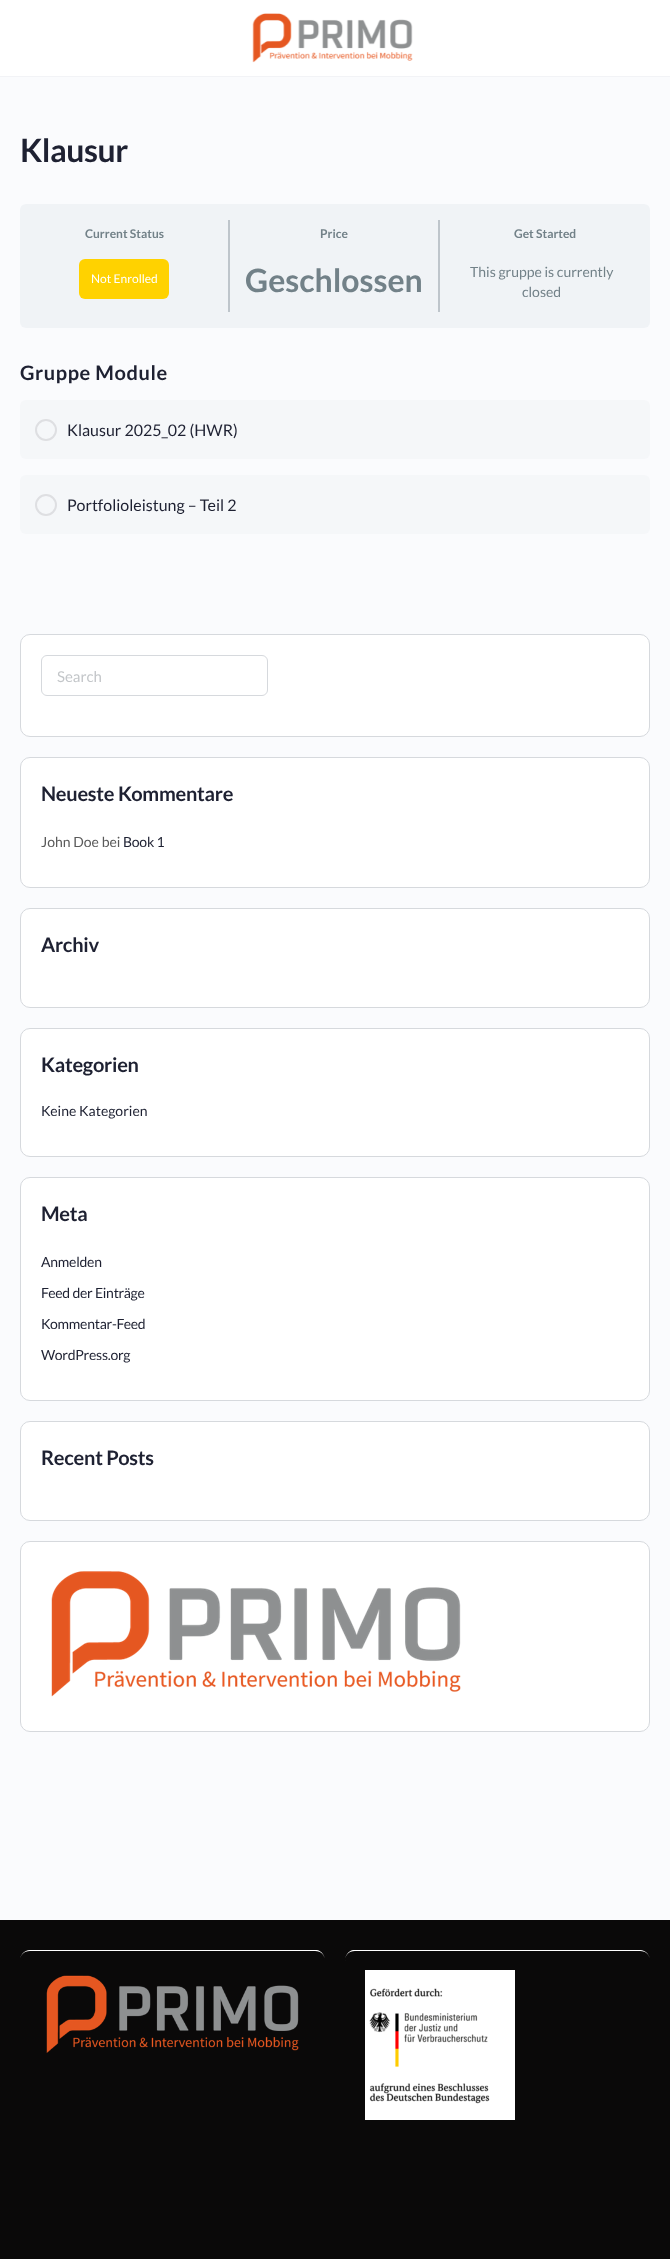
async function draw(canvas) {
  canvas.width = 670
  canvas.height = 2259
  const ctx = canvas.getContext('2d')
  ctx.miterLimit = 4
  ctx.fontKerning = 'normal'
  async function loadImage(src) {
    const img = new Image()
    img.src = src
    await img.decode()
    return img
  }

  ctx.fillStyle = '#fafbfd'
  ctx.fillRect(0, 0, 670, 2259)
  ctx.fillStyle = '#f2f3f6'
  ctx.fillRect(0, 76, 670, 1)
  ctx.fillStyle = '#fff'
  ctx.fillRect(0, 0, 670, 76)
  ctx.drawImage(await loadImage('image0.png'), 252, 13, 161, 50)
  ctx.letterSpacing = '-0.5px'
  ctx.font = 'bold 32px Lato'
  ctx.fillStyle = '#1e2132'
  ctx.fillText('Klausur', 20, 162)
  ctx.fillStyle = '#f0f3f6'
  ctx.beginPath()
  ctx.roundRect(20, 204, 630, 124, 6)
  ctx.fill()
  ctx.fillStyle = '#bec5cb'
  ctx.fillRect(228, 220, 2, 92)
  ctx.letterSpacing = '0px'
  ctx.font = 'bold 12px Lato'
  ctx.fillStyle = '#728188'
  ctx.fillText('Current Status', 85, 238)
  ctx.fillStyle = '#ffd200'
  ctx.beginPath()
  ctx.roundRect(79, 259, 90, 40, 6)
  ctx.fill()
  ctx.font = '12px Lato'
  ctx.fillStyle = '#fff'
  ctx.fillText('Not Enrolled', 91, 283)
  ctx.fillStyle = '#bec5cb'
  ctx.fillRect(438, 220, 2, 92)
  ctx.font = 'bold 12px Lato'
  ctx.fillStyle = '#728188'
  ctx.fillText('Price', 320, 238)
  ctx.font = 'bold 32px Lato'
  ctx.fillText('Geschlossen', 245, 292)
  ctx.font = 'bold 12px Lato'
  ctx.fillText('Get Started', 514, 238)
  ctx.font = '14px Lato'
  ctx.fillText('This gruppe is currently', 470, 277)
  ctx.fillText('closed', 522, 297)
  ctx.letterSpacing = '0.6px'
  ctx.font = 'bold 20px Lato'
  ctx.fillStyle = '#1e2132'
  ctx.fillText('Gruppe Module', 20, 380)
  ctx.fillStyle = '#f5f7f9'
  ctx.beginPath()
  ctx.roundRect(20, 400, 630, 59, 6)
  ctx.fill()
  ctx.beginPath()
  ctx.arc(46, 430, 10, 0, 2 * Math.PI)
  ctx.strokeStyle = '#dedfe2'
  ctx.lineWidth = 2
  ctx.stroke()
  ctx.letterSpacing = '0px'
  ctx.font = '16px Lato'
  ctx.fillStyle = '#1e2132'
  ctx.fillText('Klausur 2025_02 (HWR)', 67, 436)
  ctx.fillStyle = '#f5f7f9'
  ctx.beginPath()
  ctx.roundRect(20, 475, 630, 59, 6)
  ctx.fill()
  ctx.beginPath()
  ctx.arc(46, 505, 10, 0, 2 * Math.PI)
  ctx.stroke()
  ctx.fillStyle = '#1e2132'
  ctx.fillText('Portfolioleistung – Teil 2', 67, 511)
  ctx.fillStyle = '#fff'
  ctx.beginPath()
  ctx.roundRect(20.5, 634.5, 629, 102, 9.5)
  ctx.fill()
  ctx.strokeStyle = '#d6d9dd'
  ctx.lineWidth = 1
  ctx.stroke()
  ctx.beginPath()
  ctx.roundRect(41.5, 655.5, 226, 40, 5.5)
  ctx.stroke()
  ctx.font = '15px Lato'
  ctx.fillStyle = '#c3c6c9'
  ctx.fillText('Search', 57, 682)
  ctx.fillStyle = '#fff'
  ctx.beginPath()
  ctx.roundRect(20.5, 757.5, 629, 130, 9.5)
  ctx.fill()
  ctx.stroke()
  ctx.letterSpacing = '-0.25px'
  ctx.font = 'bold 20px Lato'
  ctx.fillStyle = '#1e2132'
  ctx.fillText('Neueste Kommentare', 41, 801)
  ctx.letterSpacing = '0px'
  ctx.font = '14px Lato'
  ctx.fillStyle = '#5a5a5a'
  ctx.fillText('John Doe bei', 41, 847)
  ctx.letterSpacing = '-0.25px'
  ctx.fillStyle = '#1e2132'
  ctx.fillText('Book 1', 123, 847)
  ctx.fillStyle = '#fff'
  ctx.beginPath()
  ctx.roundRect(20.5, 908.5, 629, 99, 9.5)
  ctx.fill()
  ctx.stroke()
  ctx.font = 'bold 20px Lato'
  ctx.fillStyle = '#1e2132'
  ctx.fillText('Archiv', 41, 952)
  ctx.fillStyle = '#fff'
  ctx.beginPath()
  ctx.roundRect(20.5, 1028.5, 629, 128, 9.5)
  ctx.fill()
  ctx.stroke()
  ctx.fillStyle = '#1e2132'
  ctx.fillText('Kategorien', 41, 1072)
  ctx.letterSpacing = '0px'
  ctx.font = '14px Lato'
  ctx.fillText('Keine Kategorien', 41, 1116)
  ctx.fillStyle = '#fff'
  ctx.beginPath()
  ctx.roundRect(20.5, 1177.5, 629, 223, 9.5)
  ctx.fill()
  ctx.stroke()
  ctx.letterSpacing = '-0.25px'
  ctx.font = 'bold 20px Lato'
  ctx.fillStyle = '#1e2132'
  ctx.fillText('Meta', 41, 1221)
  ctx.font = '14px Lato'
  ctx.fillText('Anmelden', 41, 1267)
  ctx.fillText('Feed der Einträge', 41, 1298)
  ctx.fillText('Kommentar-Feed', 41, 1329)
  ctx.fillText('WordPress.org', 41, 1360)
  ctx.fillStyle = '#fff'
  ctx.beginPath()
  ctx.roundRect(20.5, 1421.5, 629, 99, 9.5)
  ctx.fill()
  ctx.stroke()
  ctx.font = 'bold 20px Lato'
  ctx.fillStyle = '#1e2132'
  ctx.fillText('Recent Posts', 41, 1465)
  ctx.fillStyle = '#fff'
  ctx.beginPath()
  ctx.roundRect(20.5, 1541.5, 629, 190, 9.5)
  ctx.fill()
  ctx.stroke()
  ctx.drawImage(await loadImage('image1.png'), 51, 1571, 410, 126)
  ctx.fillStyle = '#0a0909'
  ctx.fillRect(0, 1920, 670, 339)
  ctx.fillStyle = '#fff'
  ctx.beginPath()
  ctx.moveTo(30, 1951)
  ctx.lineTo(315, 1951)
  ctx.bezierCurveTo(321, 1951, 325, 1955, 325, 1961)
  ctx.bezierCurveTo(325, 1956, 322, 1951, 317, 1950)
  ctx.lineTo(30, 1950)
  ctx.bezierCurveTo(24, 1950, 20, 1955, 20, 1961)
  ctx.bezierCurveTo(20, 1955, 24, 1951, 30, 1951)
  ctx.closePath()
  ctx.fill()
  ctx.drawImage(await loadImage('image2.png'), 46, 1975, 253, 78)
  ctx.beginPath()
  ctx.moveTo(355, 1951)
  ctx.lineTo(640, 1951)
  ctx.bezierCurveTo(646, 1951, 650, 1955, 650, 1961)
  ctx.bezierCurveTo(650, 1955, 646, 1950, 640, 1950)
  ctx.lineTo(353, 1950)
  ctx.bezierCurveTo(348, 1951, 345, 1956, 345, 1961)
  ctx.bezierCurveTo(345, 1955, 349, 1951, 355, 1951)
  ctx.closePath()
  ctx.fill()
  ctx.drawImage(await loadImage('image3.png'), 365, 1970, 150, 150)
}

draw(document.querySelector('canvas'))
